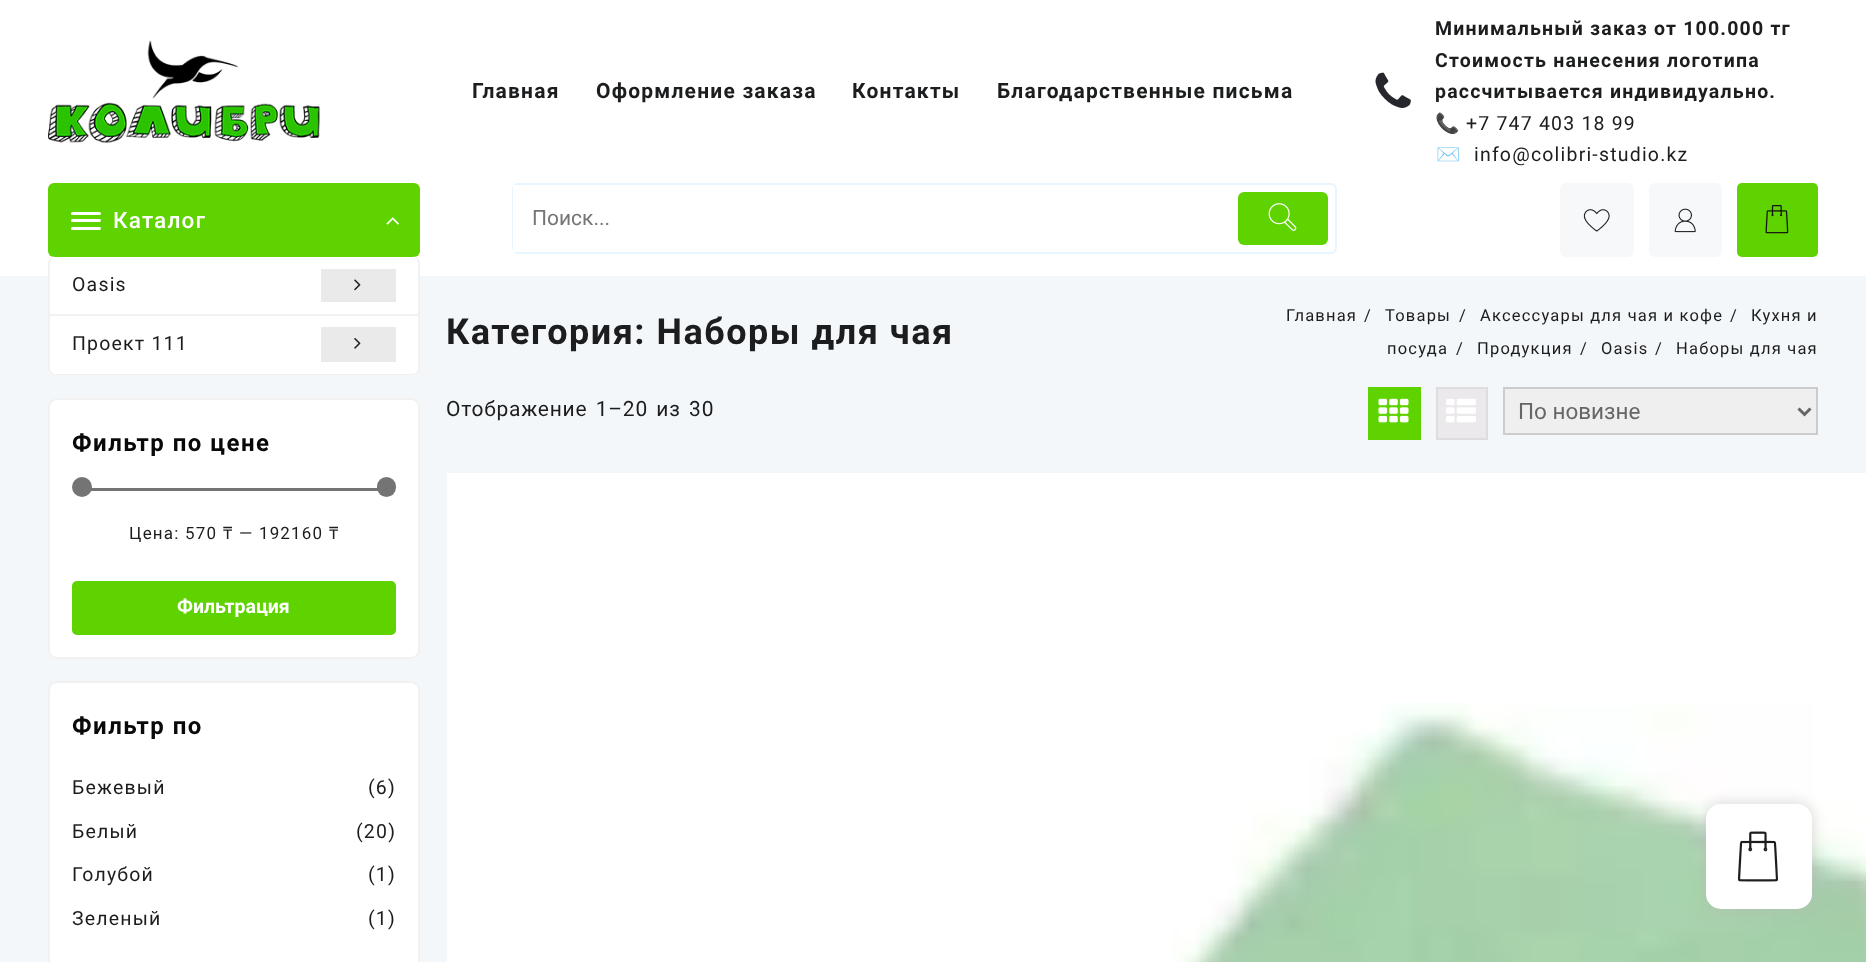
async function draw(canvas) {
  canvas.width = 1866
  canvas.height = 962
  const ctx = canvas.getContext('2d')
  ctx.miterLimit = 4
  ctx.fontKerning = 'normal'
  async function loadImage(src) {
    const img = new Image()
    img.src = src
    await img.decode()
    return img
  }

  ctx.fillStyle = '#f4f7f9'
  ctx.fillRect(0, 0, 1866, 962)
  ctx.fillStyle = '#fff'
  ctx.fillRect(0, 0, 1866, 276)
  ctx.drawImage(await loadImage('image0.png'), 48, 40, 272, 103)
  ctx.letterSpacing = '1.2px'
  ctx.font = 'bold 21px Roboto'
  ctx.fillStyle = '#1c1d1e'
  ctx.fillText('Главная', 472, 98)
  ctx.fillText('Оформление заказа', 596, 98)
  ctx.fillText('Контакты', 852, 98)
  ctx.fillText('Благодарственные письма', 997, 98)
  ctx.drawImage(await loadImage('image1.png'), 1375, 72, 36, 36)
  ctx.font = 'bold 19.5px Roboto'
  ctx.fillText('Минимальный заказ от 100.000 тг', 1435, 35)
  ctx.fillText('Стоимость нанесения логотипа', 1435, 67)
  ctx.fillText('рассчитывается индивидуально.', 1435, 98)
  ctx.font = '19.5px Noto Color Emoji'
  ctx.fillText('📞', 1435, 130)
  ctx.font = '19.5px Roboto'
  ctx.fillText('+7 747 403 18 99', 1466, 130)
  ctx.font = '19.5px Noto Color Emoji'
  ctx.fillText('✉️', 1436, 161)
  ctx.font = '19.5px Roboto'
  ctx.fillText('info@colibri-studio.kz', 1474, 161)
  ctx.fillStyle = '#5fd300'
  ctx.beginPath()
  ctx.roundRect(48, 183, 372, 74, 6)
  ctx.fill()
  ctx.fillStyle = '#fff'
  ctx.beginPath()
  ctx.roundRect(71, 212, 30, 3, 1.5)
  ctx.fill()
  ctx.beginPath()
  ctx.roundRect(71, 219, 30, 3, 1.5)
  ctx.fill()
  ctx.beginPath()
  ctx.roundRect(71, 227, 30, 3, 1.5)
  ctx.fill()
  ctx.font = '500 22.5px Roboto'
  ctx.fillText('Каталог', 113, 228)
  ctx.drawImage(await loadImage('image2.png'), 386, 217, 13, 8)
  ctx.beginPath()
  ctx.roundRect(48, 257, 372, 118, 8)
  ctx.fill()
  ctx.fillStyle = '#f1f1f1'
  ctx.beginPath()
  ctx.moveTo(56, 256)
  ctx.lineTo(412, 256)
  ctx.bezierCurveTo(417, 256, 420, 260, 420, 264)
  ctx.lineTo(420, 368)
  ctx.bezierCurveTo(420, 372, 417, 375, 412, 375)
  ctx.lineTo(56, 375)
  ctx.bezierCurveTo(51, 375, 48, 372, 48, 368)
  ctx.lineTo(48, 264)
  ctx.bezierCurveTo(48, 260, 51, 256, 56, 256)
  ctx.closePath()
  ctx.moveTo(56, 256)
  ctx.lineTo(412, 256)
  ctx.bezierCurveTo(416, 256, 418, 260, 418, 264)
  ctx.lineTo(418, 368)
  ctx.bezierCurveTo(418, 371, 416, 374, 412, 374)
  ctx.lineTo(56, 374)
  ctx.bezierCurveTo(52, 374, 50, 371, 50, 368)
  ctx.lineTo(50, 264)
  ctx.bezierCurveTo(50, 260, 52, 256, 56, 256)
  ctx.closePath()
  ctx.fill('evenodd')
  ctx.fillRect(50, 314, 369, 2)
  ctx.font = '19.5px Roboto'
  ctx.fillStyle = '#1c1d1e'
  ctx.fillText('Oasis', 72, 291)
  ctx.fillStyle = '#eaeaea'
  ctx.fillRect(321, 269, 75, 33)
  ctx.drawImage(await loadImage('image3.png'), 354, 279, 7, 12)
  ctx.fillStyle = '#1c1d1e'
  ctx.fillText('Проект 111', 72, 350)
  ctx.fillStyle = '#eaeaea'
  ctx.fillRect(321, 327, 75, 35)
  ctx.drawImage(await loadImage('image4.png'), 354, 338, 7, 11)
  ctx.beginPath()
  ctx.roundRect(513, 184, 823, 69, 5)
  ctx.strokeStyle = '#e7f5ff'
  ctx.lineWidth = 2
  ctx.stroke()
  ctx.fillStyle = '#fff'
  ctx.fillRect(513, 185, 4, 67)
  ctx.letterSpacing = '0px'
  ctx.font = '21px Roboto'
  ctx.fillStyle = '#757575'
  ctx.fillText('Поиск...', 532, 225)
  ctx.fillStyle = '#5fd300'
  ctx.beginPath()
  ctx.roundRect(1238, 192, 90, 53, 6)
  ctx.fill()
  ctx.drawImage(await loadImage('image5.png'), 1268, 203, 29, 28)
  ctx.fillStyle = '#f7f8f9'
  ctx.beginPath()
  ctx.roundRect(1560, 183, 74, 74, 6)
  ctx.fill()
  ctx.drawImage(await loadImage('image6.png'), 1583, 209, 27, 23)
  ctx.beginPath()
  ctx.roundRect(1649, 183, 73, 74, 6)
  ctx.fill()
  ctx.drawImage(await loadImage('image7.png'), 1674, 208, 22, 25)
  ctx.fillStyle = '#5fd300'
  ctx.beginPath()
  ctx.roundRect(1737, 183, 81, 74, 5)
  ctx.fill()
  ctx.drawImage(await loadImage('image8.png'), 1765, 205, 24, 29)
  ctx.letterSpacing = '1.5px'
  ctx.font = 'bold 36px Roboto'
  ctx.fillStyle = '#1c1d1e'
  ctx.fillText('Категория: Наборы для чая', 446, 344)
  ctx.letterSpacing = '1.2px'
  ctx.font = '16.5px Roboto'
  ctx.fillText('Главная', 1286, 321)
  ctx.fillText('/', 1364, 321)
  ctx.fillText('Товары', 1385, 321)
  ctx.fillText('/', 1459, 321)
  ctx.fillText('Аксессуары для чая и кофе', 1480, 321)
  ctx.fillText('/', 1730, 321)
  ctx.fillText('Кухня и', 1751, 321)
  ctx.fillText('посуда', 1387, 354)
  ctx.fillText('/', 1456, 354)
  ctx.fillText('Продукция', 1477, 354)
  ctx.fillText('/', 1580, 354)
  ctx.fillText('Oasis', 1601, 354)
  ctx.fillText('/', 1655, 354)
  ctx.fillText('Наборы для чая', 1676, 354)
  ctx.letterSpacing = '0.75px'
  ctx.wordSpacing = '2.5px'
  ctx.font = '21px Roboto'
  ctx.fillText('Отображение 1–20 из 30', 446, 416)
  ctx.fillStyle = '#5fd300'
  ctx.fillRect(1368, 387, 53, 53)
  ctx.drawImage(await loadImage('image9.png'), 1378, 398, 31, 25)
  ctx.fillStyle = '#ebe9eb'
  ctx.beginPath()
  ctx.rect(1437, 388, 50, 51)
  ctx.fill()
  ctx.strokeStyle = '#ddd'
  ctx.stroke()
  ctx.drawImage(await loadImage('image10.png'), 1446, 398, 30, 25)
  ctx.fillStyle = '#efefef'
  ctx.beginPath()
  ctx.rect(1504, 388, 313, 46)
  ctx.fill()
  ctx.strokeStyle = '#ccc'
  ctx.stroke()
  ctx.beginPath()
  ctx.moveTo(1798.5, 408.5)
  ctx.lineTo(1804.5, 414.5)
  ctx.lineTo(1810.5, 408.5)
  ctx.strokeStyle = '#666'
  ctx.lineWidth = 3
  ctx.stroke()
  ctx.letterSpacing = '0px'
  ctx.wordSpacing = '0px'
  ctx.font = '22.5px Roboto'
  ctx.fillStyle = '#666'
  ctx.fillText('По новизне', 1518, 419)
  ctx.fillStyle = '#fff'
  ctx.fillRect(447, 473, 1419, 489)
  ctx.drawImage(await loadImage('image11.png'), 1172, 702, 694, 260)
  ctx.beginPath()
  ctx.roundRect(49, 399, 370, 259, 8)
  ctx.fill()
  ctx.strokeStyle = '#f1f1f1'
  ctx.lineWidth = 2
  ctx.stroke()
  ctx.letterSpacing = '1.5px'
  ctx.font = 'bold 24px Roboto'
  ctx.fillStyle = '#090909'
  ctx.fillText('Фильтр по цене', 72, 451)
  ctx.fillStyle = '#747474'
  ctx.fillRect(83, 488, 303, 3)
  ctx.beginPath()
  ctx.arc(82, 487, 10, 0, 2 * Math.PI)
  ctx.fill()
  ctx.beginPath()
  ctx.roundRect(377, 477, 19, 20, 9.5)
  ctx.fill()
  ctx.letterSpacing = '1.2px'
  ctx.font = '17px Roboto'
  ctx.fillStyle = '#1c1d1e'
  ctx.fillText('Цена: 570', 129, 539)
  ctx.font = '17px Noto Sans'
  ctx.fillText('₸', 223, 539)
  ctx.font = '17px Roboto'
  ctx.fillText('— 192160', 239, 539)
  ctx.font = '17px Noto Sans'
  ctx.fillText('₸', 329, 539)
  ctx.fillStyle = '#5fd300'
  ctx.beginPath()
  ctx.roundRect(72, 581, 324, 54, 5)
  ctx.fill()
  ctx.letterSpacing = '0px'
  ctx.font = 'bold 19.5px Roboto'
  ctx.fillStyle = '#fff'
  ctx.fillText('Фильтрация', 177, 613)
  ctx.beginPath()
  ctx.roundRect(49, 682, 370, 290, 8)
  ctx.fill()
  ctx.stroke()
  ctx.letterSpacing = '1.5px'
  ctx.font = 'bold 24px Roboto'
  ctx.fillStyle = '#090909'
  ctx.fillText('Фильтр по', 72, 734)
  ctx.letterSpacing = '1.2px'
  ctx.font = '19.5px Roboto'
  ctx.fillStyle = '#1c1d1e'
  ctx.fillText('Бежевый', 72, 794)
  ctx.fillText('(6)', 368, 794)
  ctx.fillText('Белый', 72, 838)
  ctx.fillText('(20)', 356, 838)
  ctx.fillText('Голубой', 72, 881)
  ctx.fillText('(1)', 368, 881)
  ctx.fillText('Зеленый', 72, 925)
  ctx.fillText('(1)', 368, 925)
  ctx.fillStyle = '#b7b7b799'
  ctx.filter = 'blur(7.5px)'
  ctx.beginPath()
  ctx.roundRect(1706, 804, 106, 105, 15)
  ctx.fill()
  ctx.filter = 'none'
  ctx.fillStyle = '#fff'
  ctx.beginPath()
  ctx.roundRect(1706, 804, 106, 105, 15)
  ctx.fill()
  ctx.drawImage(await loadImage('image12.png'), 1737, 831, 41, 51)
}

draw(document.querySelector('canvas'))
